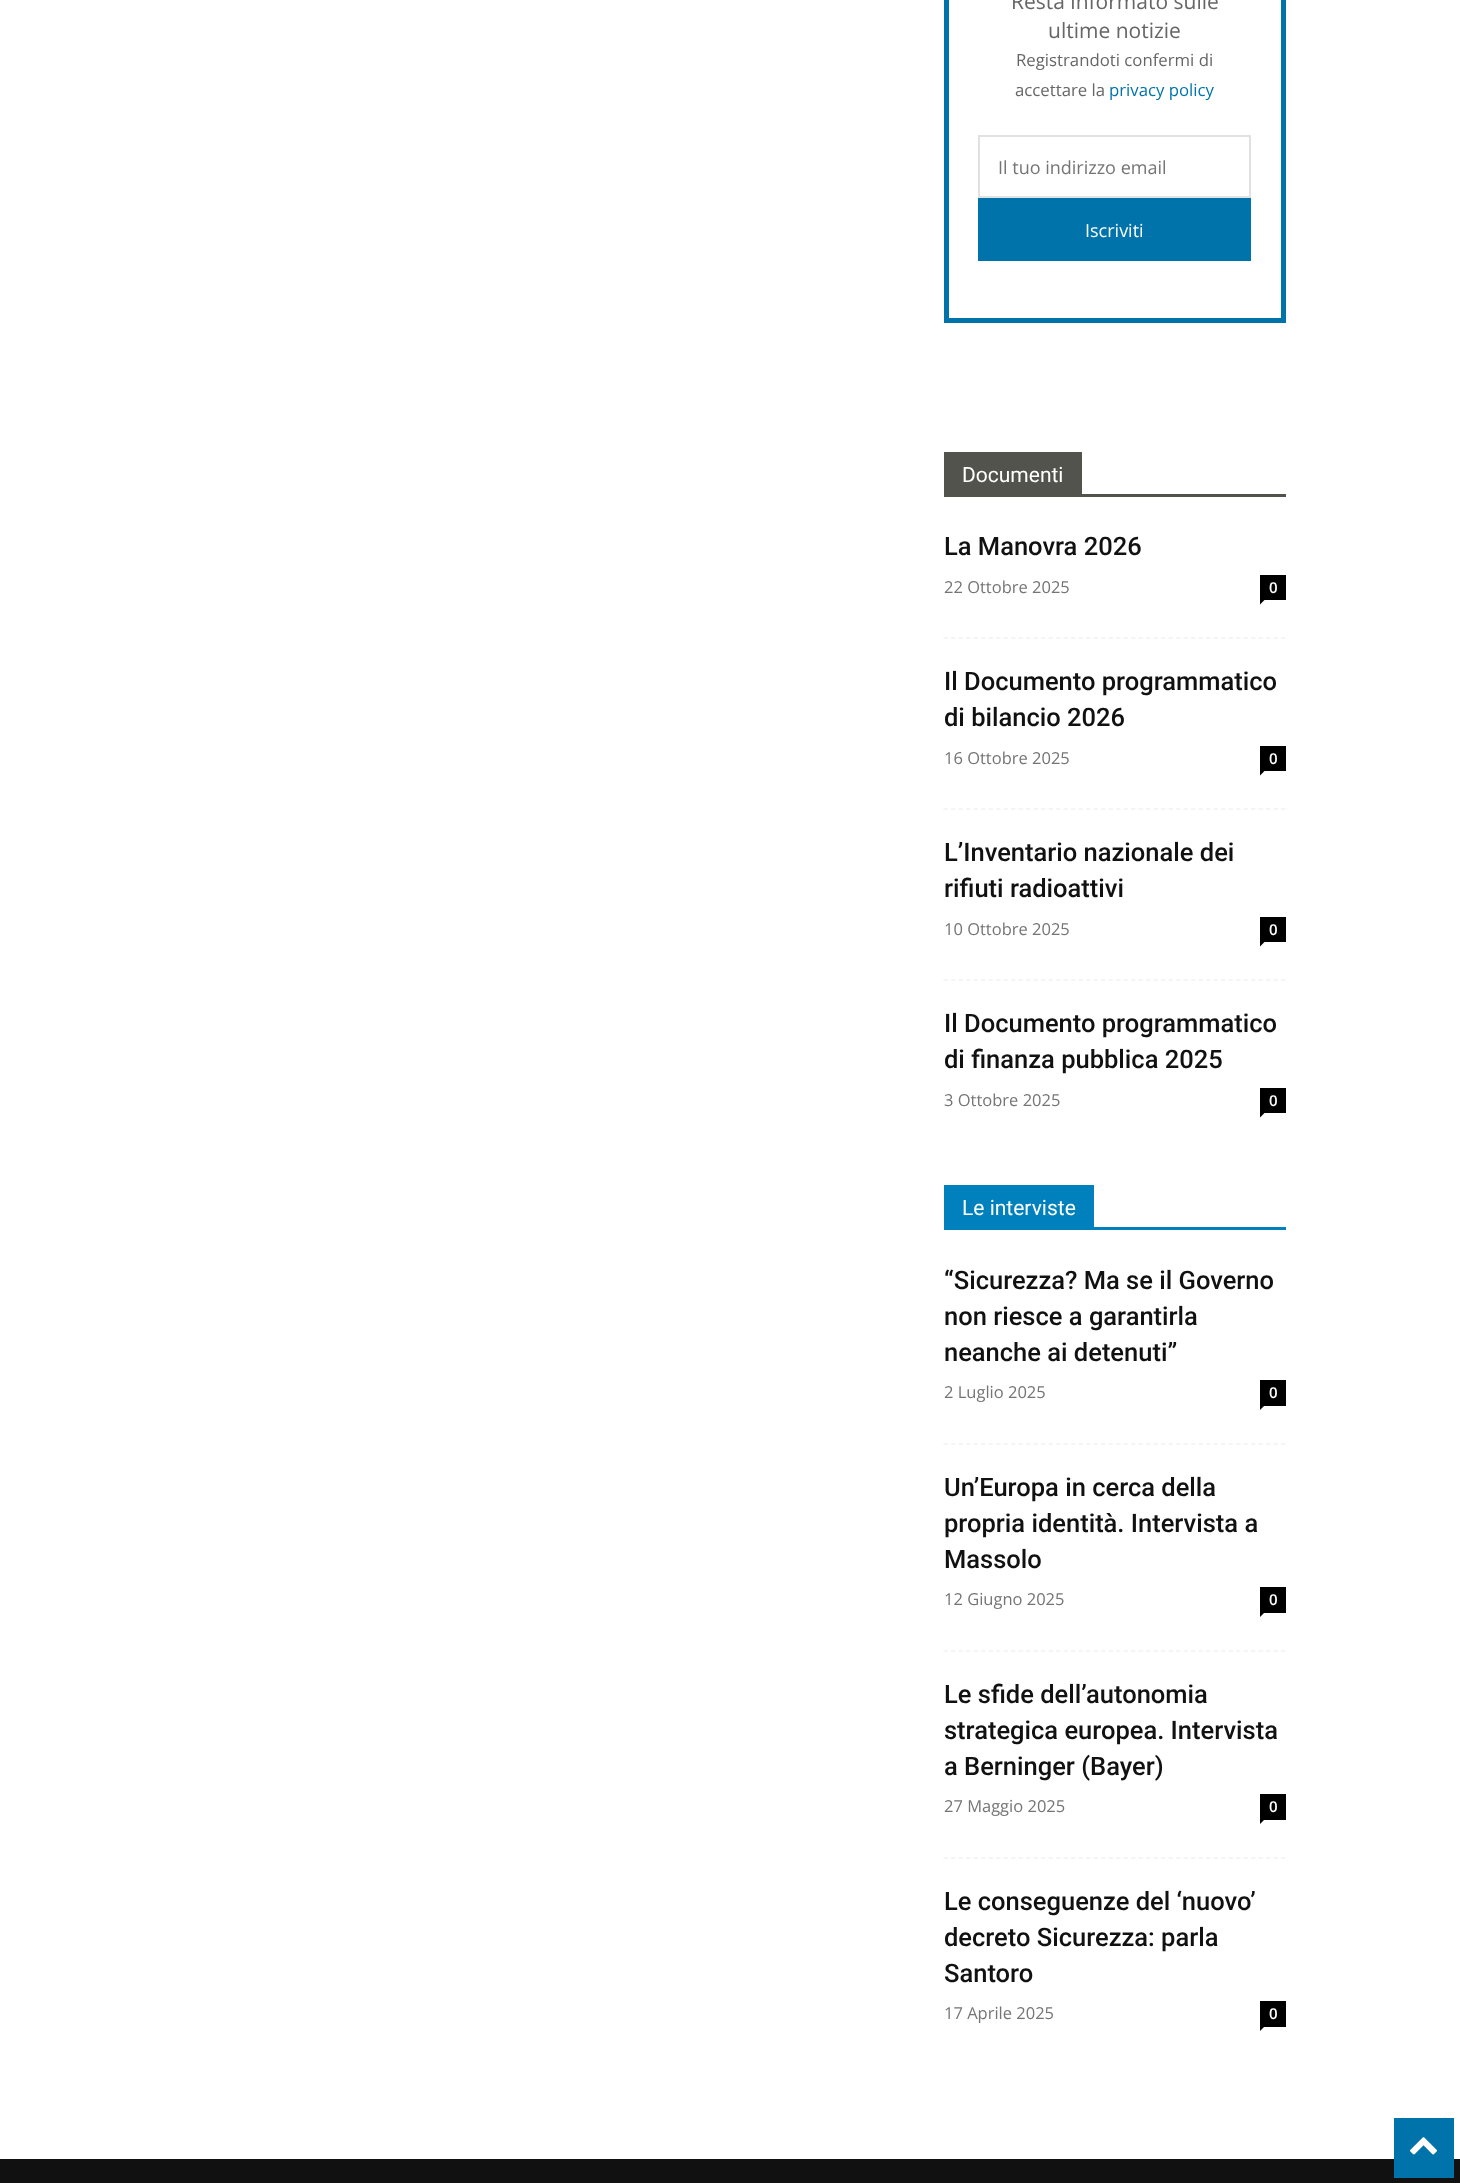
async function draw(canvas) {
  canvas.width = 1460
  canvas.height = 2183
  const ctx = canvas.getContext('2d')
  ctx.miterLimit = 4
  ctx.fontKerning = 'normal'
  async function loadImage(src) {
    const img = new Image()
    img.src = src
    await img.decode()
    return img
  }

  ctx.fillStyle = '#fff'
  ctx.fillRect(0, 0, 1460, 2183)
  ctx.strokeStyle = '#0073aa'
  ctx.lineWidth = 5
  ctx.strokeRect(946.5, -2.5, 337, 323)
  ctx.font = '21px Open Sans'
  ctx.fillStyle = '#666'
  ctx.fillText('Resta informato sulle', 1011, 9)
  ctx.fillText('ultime notizie', 1048, 38)
  ctx.font = '16.75px Open Sans'
  ctx.fillText('Registrandoti confermi di', 1016, 66)
  ctx.fillText('accettare la', 1015, 96)
  ctx.fillStyle = '#0073aa'
  ctx.fillText('privacy policy', 1109, 96)
  ctx.strokeStyle = '#e1e1e1'
  ctx.lineWidth = 2
  ctx.strokeRect(979, 136, 271, 61)
  ctx.font = '18px Open Sans'
  ctx.fillStyle = '#757575'
  ctx.fillText('Il tuo indirizzo email', 998, 174)
  ctx.fillStyle = '#0073aa'
  ctx.fillRect(978, 198, 273, 63)
  ctx.fillStyle = '#fff'
  ctx.fillText('Iscriviti', 1085, 237)
  ctx.fillStyle = '#53534d'
  ctx.fillRect(944, 494, 342, 3)
  ctx.fillRect(944, 452, 138, 42)
  ctx.font = '21px Roboto'
  ctx.fillStyle = '#fff'
  ctx.fillText('Documenti', 962, 482)
  ctx.beginPath()
  ctx.moveTo(943.5, 638)
  ctx.lineTo(1285.5, 638)
  ctx.strokeStyle = '#f2f2f2'
  ctx.lineWidth = 1.5
  ctx.setLineDash([4.5, 3])
  ctx.stroke()
  ctx.font = '500 25.5px Roboto'
  ctx.fillStyle = '#111'
  ctx.fillText('La Manovra 2026', 944, 555)
  ctx.font = '16.5px Open Sans'
  ctx.fillStyle = '#757575'
  ctx.fillText('22 Ottobre 2025', 944, 593)
  ctx.fillStyle = '#000'
  ctx.fillRect(1260, 575, 26, 25)
  ctx.font = '600 15px Open Sans'
  ctx.fillStyle = '#fff'
  ctx.fillText('0', 1269, 593)
  ctx.fillStyle = '#000'
  ctx.beginPath()
  ctx.moveTo(1260, 600)
  ctx.lineTo(1264.5, 600)
  ctx.lineTo(1260, 604.5)
  ctx.closePath()
  ctx.fill()
  ctx.beginPath()
  ctx.moveTo(943.5, 809)
  ctx.lineTo(1285.5, 809)
  ctx.stroke()
  ctx.font = '500 25.5px Roboto'
  ctx.fillStyle = '#111'
  ctx.fillText('Il Documento programmatico', 944, 690)
  ctx.fillText('di bilancio 2026', 944, 726)
  ctx.font = '16.5px Open Sans'
  ctx.fillStyle = '#757575'
  ctx.fillText('16 Ottobre 2025', 944, 764)
  ctx.fillStyle = '#000'
  ctx.fillRect(1260, 746, 26, 25)
  ctx.font = '600 15px Open Sans'
  ctx.fillStyle = '#fff'
  ctx.fillText('0', 1269, 764)
  ctx.fillStyle = '#000'
  ctx.beginPath()
  ctx.moveTo(1260, 771)
  ctx.lineTo(1264.5, 771)
  ctx.lineTo(1260, 775.5)
  ctx.closePath()
  ctx.fill()
  ctx.beginPath()
  ctx.moveTo(943.5, 980)
  ctx.lineTo(1285.5, 980)
  ctx.stroke()
  ctx.font = '500 25.5px Roboto'
  ctx.fillStyle = '#111'
  ctx.fillText('L’Inventario nazionale dei', 944, 861)
  ctx.fillText('rifiuti radioattivi', 944, 897)
  ctx.font = '16.5px Open Sans'
  ctx.fillStyle = '#757575'
  ctx.fillText('10 Ottobre 2025', 944, 935)
  ctx.fillStyle = '#000'
  ctx.fillRect(1260, 917, 26, 25)
  ctx.font = '600 15px Open Sans'
  ctx.fillStyle = '#fff'
  ctx.fillText('0', 1269, 935)
  ctx.fillStyle = '#000'
  ctx.beginPath()
  ctx.moveTo(1260, 942)
  ctx.lineTo(1264.5, 942)
  ctx.lineTo(1260, 946.5)
  ctx.closePath()
  ctx.fill()
  ctx.font = '500 25.5px Roboto'
  ctx.fillStyle = '#111'
  ctx.fillText('Il Documento programmatico', 944, 1032)
  ctx.fillText('di finanza pubblica 2025', 944, 1068)
  ctx.font = '16.5px Open Sans'
  ctx.fillStyle = '#757575'
  ctx.fillText('3 Ottobre 2025', 944, 1106)
  ctx.fillStyle = '#000'
  ctx.fillRect(1260, 1088, 26, 25)
  ctx.font = '600 15px Open Sans'
  ctx.fillStyle = '#fff'
  ctx.fillText('0', 1269, 1106)
  ctx.fillStyle = '#000'
  ctx.beginPath()
  ctx.moveTo(1260, 1113)
  ctx.lineTo(1264.5, 1113)
  ctx.lineTo(1260, 1117.5)
  ctx.closePath()
  ctx.fill()
  ctx.fillStyle = '#0081be'
  ctx.fillRect(944, 1227, 342, 3)
  ctx.fillRect(944, 1185, 150, 42)
  ctx.font = '21px Roboto'
  ctx.fillStyle = '#fff'
  ctx.fillText('Le interviste', 962, 1215)
  ctx.beginPath()
  ctx.moveTo(943.5, 1444)
  ctx.lineTo(1285.5, 1444)
  ctx.stroke()
  ctx.font = '500 25.5px Roboto'
  ctx.fillStyle = '#111'
  ctx.fillText('“Sicurezza? Ma se il Governo', 944, 1289)
  ctx.fillText('non riesce a garantirla', 944, 1325)
  ctx.fillText('neanche ai detenuti”', 944, 1361)
  ctx.font = '16.5px Open Sans'
  ctx.fillStyle = '#757575'
  ctx.fillText('2 Luglio 2025', 944, 1398)
  ctx.fillStyle = '#000'
  ctx.fillRect(1260, 1380, 26, 26)
  ctx.font = '600 15px Open Sans'
  ctx.fillStyle = '#fff'
  ctx.fillText('0', 1269, 1398)
  ctx.fillStyle = '#000'
  ctx.beginPath()
  ctx.moveTo(1260, 1405.5)
  ctx.lineTo(1264.5, 1405.5)
  ctx.lineTo(1260, 1410)
  ctx.closePath()
  ctx.fill()
  ctx.beginPath()
  ctx.moveTo(943.5, 1651)
  ctx.lineTo(1285.5, 1651)
  ctx.stroke()
  ctx.font = '500 25.5px Roboto'
  ctx.fillStyle = '#111'
  ctx.fillText('Un’Europa in cerca della', 944, 1496)
  ctx.fillText('propria identità. Intervista a', 944, 1532)
  ctx.fillText('Massolo', 944, 1568)
  ctx.font = '16.5px Open Sans'
  ctx.fillStyle = '#757575'
  ctx.fillText('12 Giugno 2025', 944, 1605)
  ctx.fillStyle = '#000'
  ctx.fillRect(1260, 1587, 26, 26)
  ctx.font = '600 15px Open Sans'
  ctx.fillStyle = '#fff'
  ctx.fillText('0', 1269, 1605)
  ctx.fillStyle = '#000'
  ctx.beginPath()
  ctx.moveTo(1260, 1612.5)
  ctx.lineTo(1264.5, 1612.5)
  ctx.lineTo(1260, 1617)
  ctx.closePath()
  ctx.fill()
  ctx.beginPath()
  ctx.moveTo(943.5, 1858)
  ctx.lineTo(1285.5, 1858)
  ctx.stroke()
  ctx.font = '500 25.5px Roboto'
  ctx.fillStyle = '#111'
  ctx.fillText('Le sfide dell’autonomia', 944, 1703)
  ctx.fillText('strategica europea. Intervista', 944, 1739)
  ctx.fillText('a Berninger (Bayer)', 944, 1775)
  ctx.font = '16.5px Open Sans'
  ctx.fillStyle = '#757575'
  ctx.fillText('27 Maggio 2025', 944, 1812)
  ctx.fillStyle = '#000'
  ctx.fillRect(1260, 1794, 26, 26)
  ctx.font = '600 15px Open Sans'
  ctx.fillStyle = '#fff'
  ctx.fillText('0', 1269, 1812)
  ctx.fillStyle = '#000'
  ctx.beginPath()
  ctx.moveTo(1260, 1819.5)
  ctx.lineTo(1264.5, 1819.5)
  ctx.lineTo(1260, 1824)
  ctx.closePath()
  ctx.fill()
  ctx.font = '500 25.5px Roboto'
  ctx.fillStyle = '#111'
  ctx.fillText('Le conseguenze del ‘nuovo’', 944, 1910)
  ctx.fillText('decreto Sicurezza: parla', 944, 1946)
  ctx.fillText('Santoro', 944, 1982)
  ctx.font = '16.5px Open Sans'
  ctx.fillStyle = '#757575'
  ctx.fillText('17 Aprile 2025', 944, 2019)
  ctx.fillStyle = '#000'
  ctx.fillRect(1260, 2001, 26, 26)
  ctx.font = '600 15px Open Sans'
  ctx.fillStyle = '#fff'
  ctx.fillText('0', 1269, 2019)
  ctx.fillStyle = '#000'
  ctx.beginPath()
  ctx.moveTo(1260, 2026.5)
  ctx.lineTo(1264.5, 2026.5)
  ctx.lineTo(1260, 2031)
  ctx.closePath()
  ctx.fill()
  ctx.fillStyle = '#111'
  ctx.fillRect(0, 2159, 1460, 24)
  ctx.fillStyle = '#0073aa'
  ctx.fillRect(1394, 2118, 60, 60)
  ctx.drawImage(await loadImage('image0.png'), 1410, 2137, 27, 18)
}

draw(document.querySelector('canvas'))
